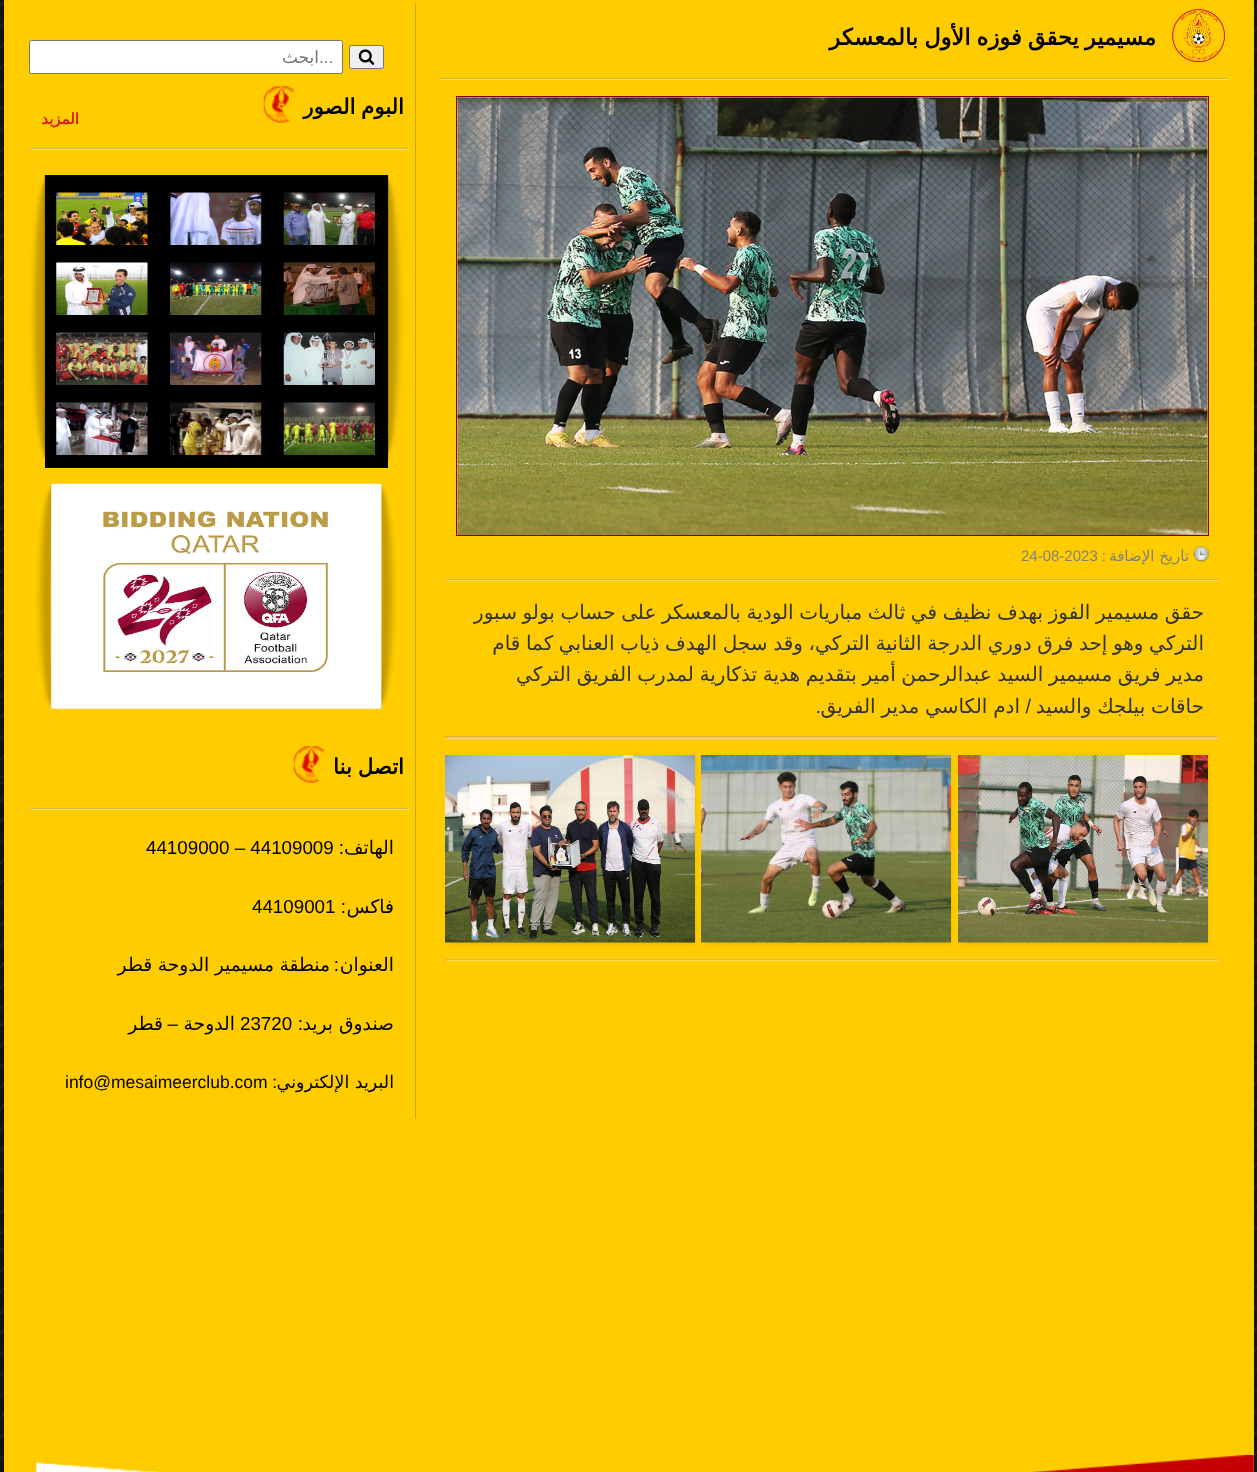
async function draw(canvas) {
  canvas.width = 1257
  canvas.height = 1472
  const ctx = canvas.getContext('2d')
  ctx.miterLimit = 4
  ctx.fontKerning = 'normal'
  async function loadImage(src) {
    const img = new Image()
    img.src = src
    await img.decode()
    return img
  }

  ctx.fillStyle = '#fff'
  ctx.fillRect(0, 0, 1257, 1472)
  ctx.drawImage(await loadImage('image0.png'), 0, 0, 1257, 1472)
  ctx.fillStyle = '#fc0'
  ctx.fillRect(4, 0, 1250, 1472)
  ctx.drawImage(await loadImage('image1.png'), 1172, 9, 53, 53)
  ctx.wordSpacing = '-1px'
  ctx.direction = 'rtl'
  ctx.font = 'bold 22.5px DejaVu Sans'
  ctx.fillStyle = '#000'
  ctx.fillText('مسيمير يحقق فوزه الأول بالمعسكر', 1156, 45)
  ctx.fillStyle = '#d9ba40'
  ctx.fillRect(439, 78, 790, 1)
  ctx.fillStyle = '#f8da5f'
  ctx.fillRect(1228, 78, 1, 3)
  ctx.fillRect(439, 79, 790, 1)
  ctx.fillStyle = '#d9ba40'
  ctx.fillRect(439, 78, 1, 3)
  ctx.strokeStyle = '#8b0000'
  ctx.strokeRect(456.5, 96.5, 752, 439)
  ctx.drawImage(await loadImage('image2.png'), 457, 97, 751, 438)
  ctx.drawImage(await loadImage('image3.png'), 1193, 546, 16, 16)
  ctx.wordSpacing = '0px'
  ctx.font = '15px DejaVu Sans'
  ctx.fillStyle = '#808080'
  ctx.fillText('تاريخ الإضافة', 1189, 561)
  ctx.font = '15px Liberation Sans'
  ctx.fillText(':', 1106, 561)
  ctx.direction = 'ltr'
  ctx.fillText('24-08-2023', 1021, 561)
  ctx.fillStyle = '#d9ba40'
  ctx.fillRect(445, 579, 774, 1)
  ctx.fillStyle = '#f8da5f'
  ctx.fillRect(1218, 579, 1, 3)
  ctx.fillRect(445, 580, 774, 1)
  ctx.fillStyle = '#d9ba40'
  ctx.fillRect(445, 579, 1, 3)
  ctx.wordSpacing = '-0.75px'
  ctx.direction = 'rtl'
  ctx.font = '20px DejaVu Sans'
  ctx.fillStyle = '#333'
  ctx.fillText('حقق مسيمير الفوز بهدف نظيف في ثالث مباريات الودية بالمعسكر على حساب بولو سبور', 1204, 619)
  ctx.fillText('التركي وهو إحد فرق دوري الدرجة الثانية التركي، وقد سجل الهدف ذياب العنابي كما قام', 1204, 650)
  ctx.fillText('مدير فريق مسيمير السيد عبدالرحمن أمير بتقديم هدية تذكارية لمدرب الفريق التركي', 1204, 681)
  ctx.wordSpacing = '-0.5px'
  ctx.fillText('حاقات بيلجك والسيد', 1204, 713)
  ctx.wordSpacing = '0px'
  ctx.font = '20px Liberation Sans'
  ctx.fillText('/', 1031, 713)
  ctx.wordSpacing = '-0.5px'
  ctx.font = '20px DejaVu Sans'
  ctx.fillText('ادم الكاسي مدير الفريق', 1020, 713)
  ctx.wordSpacing = '0px'
  ctx.font = '20px Liberation Sans'
  ctx.fillText('.', 821, 713)
  ctx.fillStyle = '#d9ba40'
  ctx.fillRect(445, 736, 774, 1)
  ctx.fillStyle = '#f8da5f'
  ctx.fillRect(1218, 736, 1, 3)
  ctx.fillRect(445, 738, 774, 1)
  ctx.fillStyle = '#d9ba40'
  ctx.fillRect(445, 736, 1, 3)
  ctx.fillStyle = '#0000001a'
  ctx.filter = 'blur(2px)'
  ctx.beginPath()
  ctx.rect(964, 756, 244, 188)
  ctx.fill()
  ctx.filter = 'none'
  ctx.drawImage(await loadImage('image4.png'), 958, 755, 250, 188)
  ctx.filter = 'blur(2px)'
  ctx.beginPath()
  ctx.rect(708, 756, 243, 188)
  ctx.fill()
  ctx.filter = 'none'
  ctx.filter = 'blur(2px)'
  ctx.beginPath()
  ctx.rect(451, 756, 244, 188)
  ctx.fill()
  ctx.filter = 'none'
  ctx.drawImage(await loadImage('image5.png'), 701, 755, 250, 188)
  ctx.drawImage(await loadImage('image6.png'), 445, 755, 250, 188)
  ctx.fillStyle = '#d9ba40'
  ctx.fillRect(445, 959, 774, 1)
  ctx.fillStyle = '#f8da5f'
  ctx.fillRect(1218, 959, 1, 3)
  ctx.fillRect(445, 960, 774, 1)
  ctx.fillStyle = '#d9ba40'
  ctx.fillRect(445, 959, 1, 3)
  ctx.fillStyle = '#c3a52a'
  ctx.fillRect(415, 3, 1, 1116)
  ctx.fillStyle = '#efefef'
  ctx.beginPath()
  ctx.roundRect(349.5, 45.5, 34, 23, 2)
  ctx.fill()
  ctx.strokeStyle = '#767676'
  ctx.stroke()
  ctx.drawImage(await loadImage('image7.png'), 358, 49, 17, 16)
  ctx.fillStyle = '#fff'
  ctx.beginPath()
  ctx.roundRect(29.5, 40.5, 313, 33, 2)
  ctx.fill()
  ctx.stroke()
  ctx.direction = 'ltr'
  ctx.font = '17px Liberation Sans'
  ctx.fillStyle = '#757575'
  ctx.fillText('...', 319, 63)
  ctx.direction = 'rtl'
  ctx.font = '17px DejaVu Sans'
  ctx.fillText('ابحث', 319, 63)
  ctx.wordSpacing = '-1px'
  ctx.font = 'bold 21.25px DejaVu Sans'
  ctx.fillStyle = '#000'
  ctx.fillText('البوم الصور', 404, 114)
  ctx.drawImage(await loadImage('image8.png'), 263, 86, 31, 37)
  ctx.wordSpacing = '0px'
  ctx.font = 'bold 15px DejaVu Sans'
  ctx.fillStyle = '#d81818'
  ctx.fillText('المزيد', 79, 124)
  ctx.fillStyle = '#d9ba40'
  ctx.fillRect(29, 148, 380, 1)
  ctx.fillStyle = '#f8da5f'
  ctx.fillRect(408, 148, 1, 3)
  ctx.fillRect(29, 149, 380, 1)
  ctx.fillStyle = '#d9ba40'
  ctx.fillRect(29, 148, 1, 3)
  ctx.drawImage(await loadImage('image9.png'), 30, 175, 373, 284)
  ctx.fillStyle = '#000'
  ctx.fillRect(45, 175, 343, 293)
  ctx.drawImage(await loadImage('image10.png'), 283, 192, 92, 53)
  ctx.drawImage(await loadImage('image11.png'), 170, 192, 92, 53)
  ctx.drawImage(await loadImage('image12.png'), 56, 192, 92, 53)
  ctx.drawImage(await loadImage('image13.png'), 283, 262, 92, 53)
  ctx.drawImage(await loadImage('image14.png'), 170, 262, 92, 53)
  ctx.drawImage(await loadImage('image15.png'), 56, 262, 92, 53)
  ctx.drawImage(await loadImage('image16.png'), 283, 332, 92, 53)
  ctx.drawImage(await loadImage('image17.png'), 170, 332, 92, 53)
  ctx.drawImage(await loadImage('image18.png'), 56, 332, 92, 53)
  ctx.drawImage(await loadImage('image19.png'), 283, 402, 92, 53)
  ctx.drawImage(await loadImage('image20.png'), 170, 402, 92, 53)
  ctx.drawImage(await loadImage('image21.png'), 56, 402, 92, 53)
  ctx.drawImage(await loadImage('image22.png'), 36, 484, 361, 225)
  ctx.drawImage(await loadImage('image23.png'), 51, 483, 331, 226)
  ctx.wordSpacing = '-1px'
  ctx.font = 'bold 21.25px DejaVu Sans'
  ctx.fillText('اتصل بنا', 404, 774)
  ctx.drawImage(await loadImage('image8.png'), 293, 746, 31, 37)
  ctx.fillStyle = '#d9ba40'
  ctx.fillRect(29, 808, 380, 1)
  ctx.fillStyle = '#f8da5f'
  ctx.fillRect(408, 808, 1, 3)
  ctx.fillRect(29, 809, 380, 1)
  ctx.fillStyle = '#d9ba40'
  ctx.fillRect(29, 808, 1, 3)
  ctx.wordSpacing = '0px'
  ctx.font = '18.75px DejaVu Sans'
  ctx.fillStyle = '#000'
  ctx.fillText('الهاتف', 394, 854)
  ctx.font = '18.75px Liberation Sans'
  ctx.fillText(':', 344, 854)
  ctx.direction = 'ltr'
  ctx.fillText('44109000 – 44109009', 146, 854)
  ctx.direction = 'rtl'
  ctx.font = '18.75px DejaVu Sans'
  ctx.fillText('فاكس', 394, 913)
  ctx.font = '18.75px Liberation Sans'
  ctx.fillText(':', 346, 913)
  ctx.direction = 'ltr'
  ctx.fillText('44109001', 252, 913)
  ctx.direction = 'rtl'
  ctx.font = '18.75px DejaVu Sans'
  ctx.fillText('العنوان', 394, 971)
  ctx.font = '18.75px Liberation Sans'
  ctx.fillText(':', 339, 971)
  ctx.wordSpacing = '-0.5px'
  ctx.font = '18.75px DejaVu Sans'
  ctx.fillText('منطقة مسيمير الدوحة قطر', 330, 971)
  ctx.wordSpacing = '0px'
  ctx.fillText('صندوق بريد', 394, 1030)
  ctx.font = '18.75px Liberation Sans'
  ctx.fillText(':', 303, 1030)
  ctx.direction = 'ltr'
  ctx.fillText('23720', 240, 1030)
  ctx.direction = 'rtl'
  ctx.font = '18.75px DejaVu Sans'
  ctx.fillText('الدوحة', 235, 1030)
  ctx.font = '18.75px Liberation Sans'
  ctx.fillText('–', 178, 1030)
  ctx.font = '18.75px DejaVu Sans'
  ctx.fillText('قطر', 163, 1030)
  ctx.font = '17.5px DejaVu Sans'
  ctx.fillText('البريد الإلكتروني', 394, 1088)
  ctx.font = '17.5px Liberation Sans'
  ctx.fillText(':', 277, 1088)
  ctx.direction = 'ltr'
  ctx.fillText('info@mesaimeerclub.com', 65, 1088)
  ctx.drawImage(await loadImage('image24.png'), 36, 1455, 1218, 17)
}

draw(document.querySelector('canvas'))
